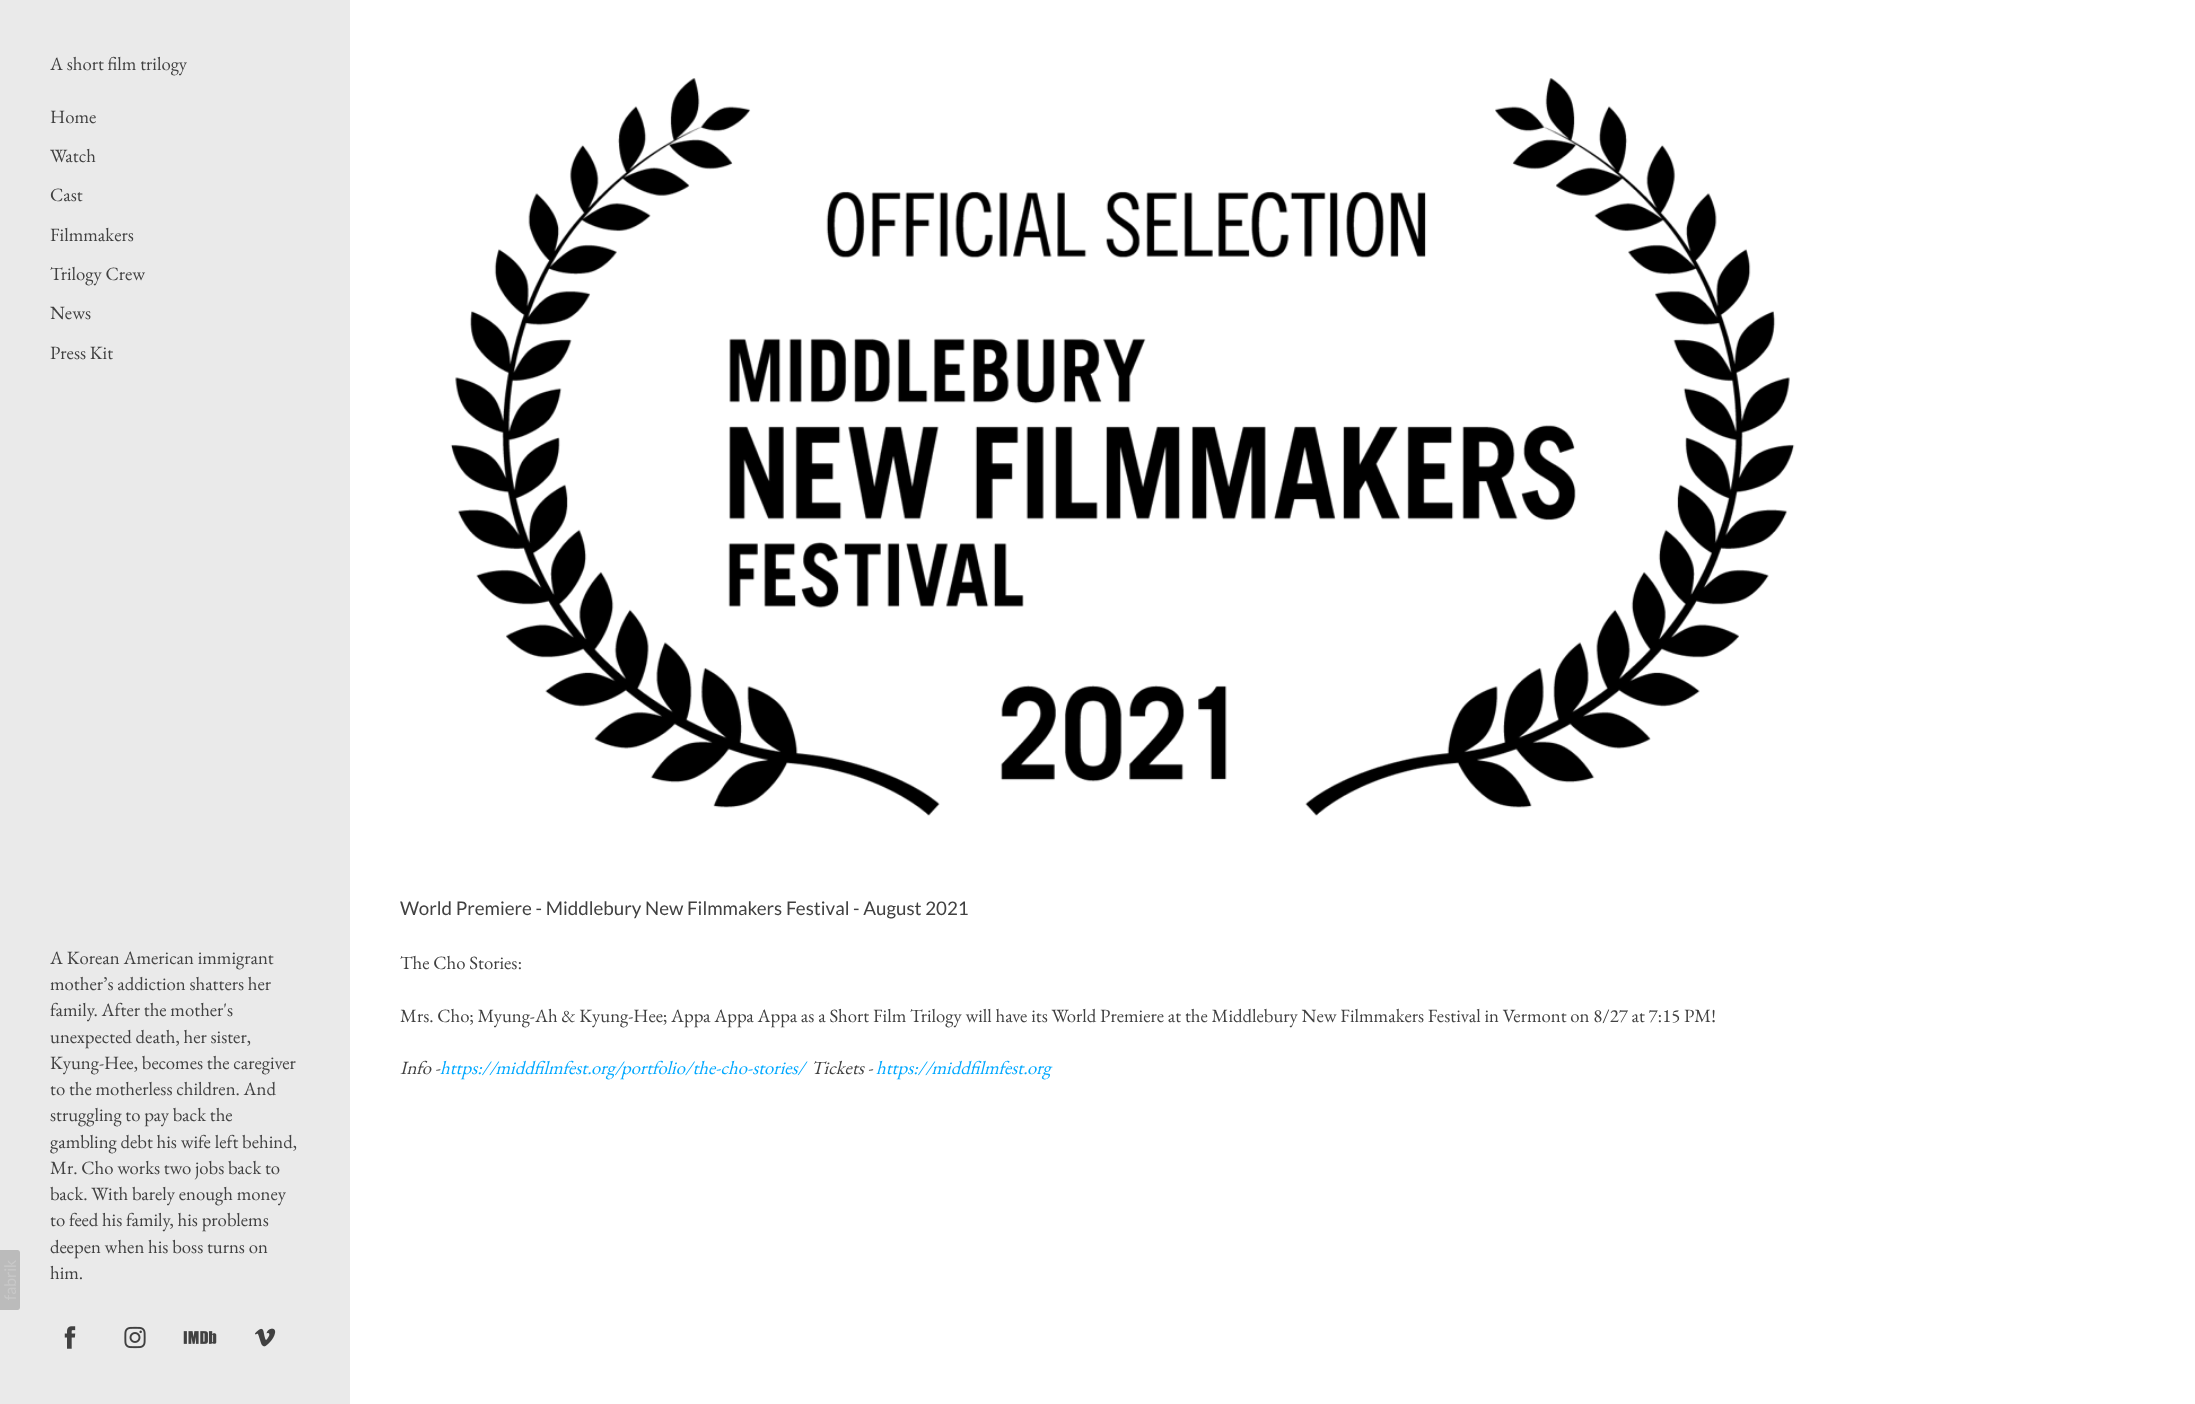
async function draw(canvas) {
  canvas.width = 2195
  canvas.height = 1404
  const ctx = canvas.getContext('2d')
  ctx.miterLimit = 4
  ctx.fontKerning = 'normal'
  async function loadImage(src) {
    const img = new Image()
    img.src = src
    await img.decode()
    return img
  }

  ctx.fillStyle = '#fff'
  ctx.fillRect(0, 0, 2195, 1404)
  ctx.fillStyle = '#eaeaea'
  ctx.fillRect(0, 0, 350, 1404)
  ctx.font = '18.75px EB Garamond'
  ctx.fillStyle = '#414141'
  ctx.fillText('A short film trilogy', 50, 70)
  ctx.fillText('Home', 50, 123)
  ctx.fillText('Watch', 50, 162)
  ctx.fillText('Cast', 50, 201)
  ctx.fillText('Filmmakers', 50, 241)
  ctx.fillText('Trilogy Crew', 50, 280)
  ctx.fillText('News', 50, 319)
  ctx.fillText('Press Kit', 50, 359)
  ctx.drawImage(await loadImage('image0.png'), 0, 1250, 20, 60)
  ctx.fillText('A Korean American immigrant', 50, 964)
  ctx.fillText('mother’s addiction shatters her', 50, 990)
  ctx.fillText('family. After the mother\'s', 50, 1016)
  ctx.fillText('unexpected death, her sister,', 50, 1043)
  ctx.fillText('Kyung-Hee, becomes the caregiver', 50, 1069)
  ctx.fillText('to the motherless children. And', 50, 1095)
  ctx.fillText('struggling to pay back the', 50, 1121)
  ctx.fillText('gambling debt his wife left behind,', 50, 1148)
  ctx.fillText('Mr. Cho works two jobs back to', 50, 1174)
  ctx.fillText('back. With barely enough money', 50, 1200)
  ctx.fillText('to feed his family, his problems', 50, 1226)
  ctx.fillText('deepen when his boss turns on', 50, 1253)
  ctx.fillText('him.', 50, 1279)
  ctx.drawImage(await loadImage('image1.png'), 64, 1326, 12, 23)
  ctx.drawImage(await loadImage('image2.png'), 124, 1326, 22, 23)
  ctx.drawImage(await loadImage('image3.png'), 183, 1331, 34, 13)
  ctx.drawImage(await loadImage('image4.png'), 255, 1328, 21, 19)
  ctx.drawImage(await loadImage('image5.png'), 450, 78, 1345, 738)
  ctx.font = '18.75px Lato'
  ctx.fillText('World Premiere - Middlebury New Filmmakers Festival - August 2021', 400, 915)
  ctx.font = '18.75px EB Garamond'
  ctx.fillText('The Cho Stories:', 400, 969)
  ctx.fillText('Mrs. Cho; Myung-Ah & Kyung-Hee; Appa Appa Appa as a Short Film Trilogy will have its World Premiere at the Middlebury New Filmmakers Festival in Vermont on 8/27 at 7:15 PM!', 400, 1022)
  ctx.font = 'italic 18.75px EB Garamond'
  ctx.fillText('Info -', 400, 1074)
  ctx.fillStyle = '#00a8ff'
  ctx.fillText('https://middfilmfest.org/portfolio/the-cho-stories/', 440, 1074)
  ctx.fillStyle = '#414141'
  ctx.fillText('Tickets -', 811, 1074)
  ctx.fillStyle = '#00a8ff'
  ctx.fillText('https://middfilmfest.org', 876, 1074)
}

draw(document.querySelector('canvas'))
